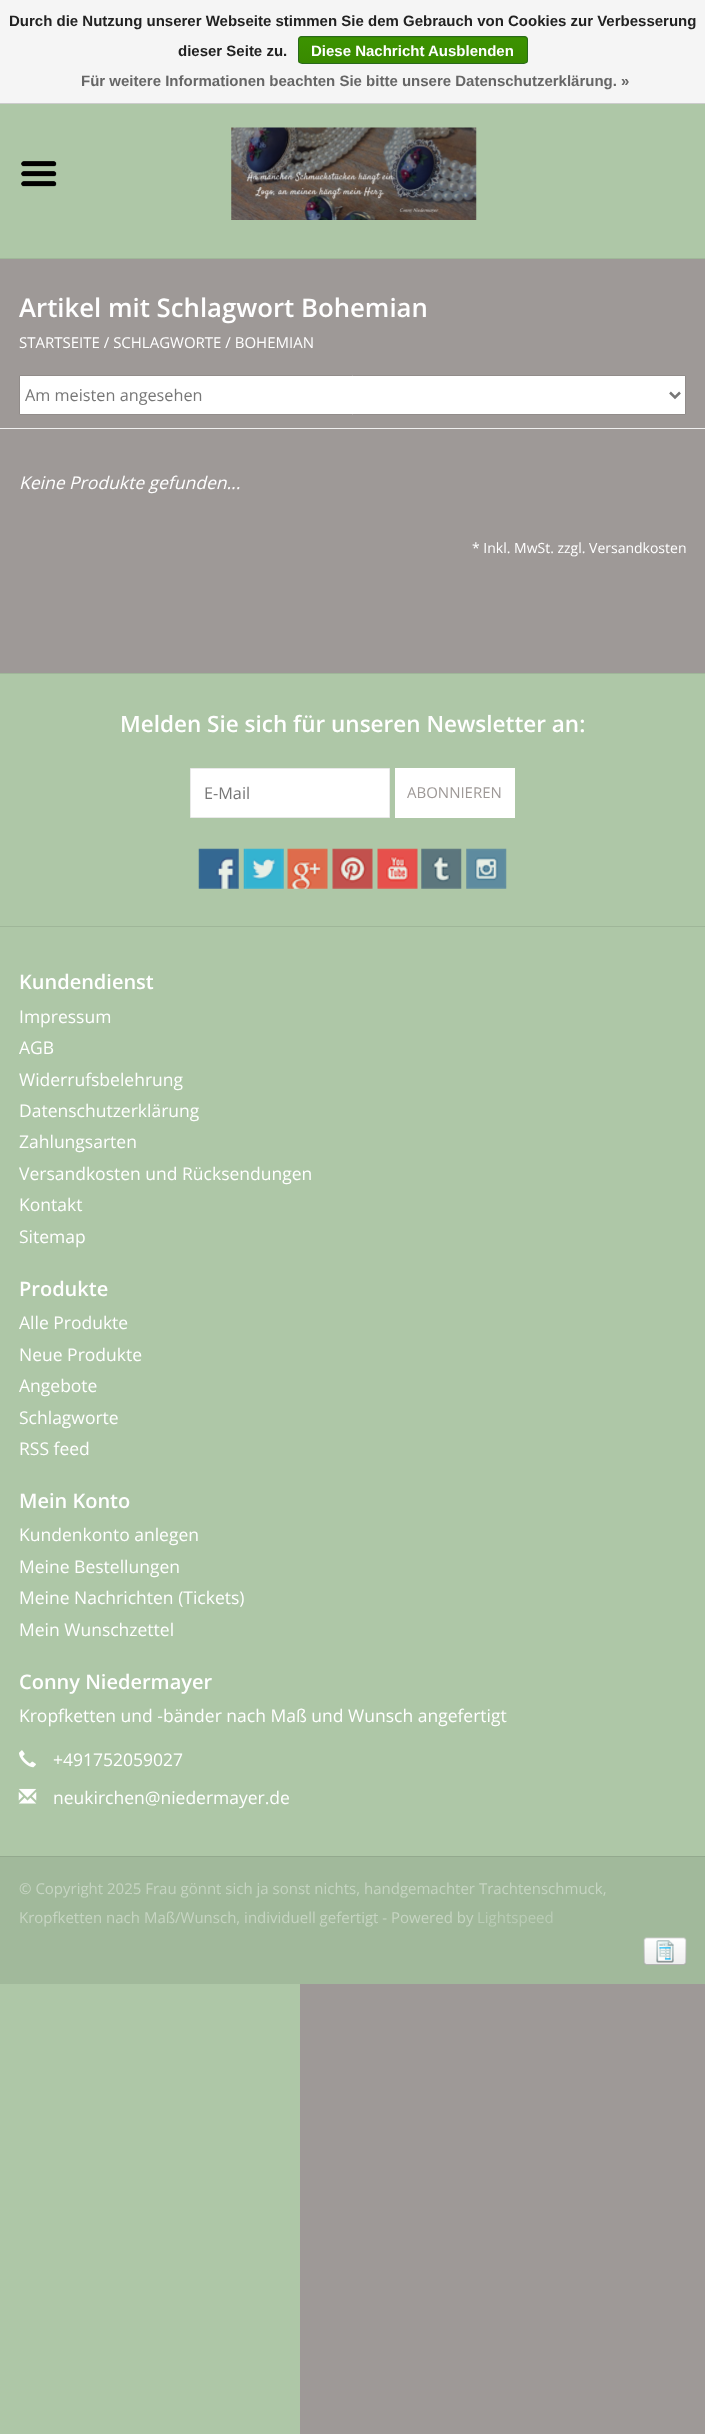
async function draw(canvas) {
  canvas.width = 705
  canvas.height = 2434
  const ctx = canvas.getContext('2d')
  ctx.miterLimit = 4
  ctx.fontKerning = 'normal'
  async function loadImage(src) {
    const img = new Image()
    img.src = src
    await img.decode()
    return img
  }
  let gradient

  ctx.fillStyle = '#9e9997'
  ctx.fillRect(0, 0, 705, 2434)
  ctx.fillStyle = '#f5f5f5'
  ctx.fillRect(0, 0, 705, 103)
  ctx.fillStyle = '#ccc'
  ctx.fillRect(0, 103, 705, 1)
  ctx.font = 'bold 15px Liberation Sans'
  ctx.fillStyle = '#222'
  ctx.fillText('Durch die Nutzung unserer Webseite stimmen Sie dem Gebrauch von Cookies zur Verbesserung', 9, 26)
  ctx.fillText('dieser Seite zu.', 178, 56)
  ctx.save()
  ctx.beginPath()
  ctx.roundRect(298, 36, 230, 28, 4)
  ctx.clip()
  gradient = ctx.createLinearGradient(413, 12, 413, 38)
  gradient.addColorStop(0, '#3c9300')
  gradient.addColorStop(1, '#398a00')
  ctx.fillStyle = gradient
  ctx.fillRect(298, 36, 230, 2)
  gradient = ctx.createLinearGradient(413, 37, 413, 63)
  gradient.addColorStop(0, '#3c9300')
  gradient.addColorStop(1, '#398a00')
  ctx.fillStyle = gradient
  ctx.fillRect(298, 38, 230, 25)
  ctx.restore()
  ctx.beginPath()
  ctx.roundRect(298.5, 36.5, 229, 27, 3.5)
  ctx.strokeStyle = '#29691d'
  ctx.stroke()
  ctx.fillStyle = '#fff'
  ctx.fillText('Diese Nachricht Ausblenden', 311, 56)
  ctx.fillStyle = '#666'
  ctx.fillText('Für weitere Informationen beachten Sie bitte unsere Datenschutzerklärung. »', 81, 86)
  ctx.fillStyle = '#aec7a7'
  ctx.fillRect(0, 104, 705, 154)
  ctx.fillStyle = '#a0b799'
  ctx.fillRect(0, 258, 705, 1)
  ctx.drawImage(await loadImage('image0.png'), 231, 127, 246, 93)
  ctx.drawImage(await loadImage('image1.png'), 21, 161, 36, 26)
  ctx.fillStyle = '#aec7a7'
  ctx.fillRect(0, 1984, 300, 450)
  ctx.font = '600 25.75px Open Sans'
  ctx.fillStyle = '#fff'
  ctx.fillText('Artikel mit Schlagwort Bohemian', 19, 317)
  ctx.font = '15px Open Sans'
  ctx.fillText('STARTSEITE / SCHLAGWORTE / BOHEMIAN', 19, 348)
  ctx.fillStyle = '#f0f0f0'
  ctx.fillRect(0, 428, 705, 1)
  ctx.fillStyle = '#fff'
  ctx.beginPath()
  ctx.rect(19.5, 375.5, 666, 39)
  ctx.fill()
  ctx.strokeStyle = '#918c8a'
  ctx.stroke()
  ctx.beginPath()
  ctx.moveTo(670, 392.5)
  ctx.lineTo(675, 397.5)
  ctx.lineTo(680, 392.5)
  ctx.strokeStyle = '#777'
  ctx.lineWidth = 2.5
  ctx.stroke()
  ctx.font = '16.25px Open Sans'
  ctx.fillStyle = '#777'
  ctx.fillText('Am meisten angesehen', 25, 401)
  ctx.font = 'italic 17.5px Open Sans'
  ctx.fillStyle = '#fff'
  ctx.fillText('Keine Produkte gefunden...', 19, 489)
  ctx.font = '14px Open Sans'
  ctx.fillText('* Inkl. MwSt. zzgl. Versandkosten', 472, 553)
  ctx.fillStyle = '#aec7a7'
  ctx.fillRect(0, 674, 705, 1182)
  ctx.fillStyle = '#9fb699'
  ctx.fillRect(0, 673, 705, 1)
  ctx.font = '600 22.5px Open Sans'
  ctx.fillStyle = '#fff'
  ctx.fillText('Melden Sie sich für unseren Newsletter an:', 120, 732)
  ctx.beginPath()
  ctx.rect(190.5, 768.5, 199, 49)
  ctx.fill()
  ctx.strokeStyle = '#e9e9e9'
  ctx.lineWidth = 1
  ctx.stroke()
  ctx.font = '16.25px Open Sans'
  ctx.fillStyle = '#777'
  ctx.fillText('E-Mail', 204, 799)
  ctx.fillStyle = '#fff'
  ctx.fillRect(395, 768, 120, 50)
  ctx.font = '15px Open Sans'
  ctx.fillStyle = '#9e9997'
  ctx.fillText('ABONNIEREN', 407, 798)
  ctx.drawImage(await loadImage('image2.png'), 198, 848, 41, 41)
  ctx.drawImage(await loadImage('image3.png'), 243, 848, 41, 41)
  ctx.drawImage(await loadImage('image4.png'), 287, 848, 41, 41)
  ctx.drawImage(await loadImage('image5.png'), 332, 848, 41, 41)
  ctx.drawImage(await loadImage('image6.png'), 377, 848, 41, 41)
  ctx.drawImage(await loadImage('image7.png'), 421, 848, 41, 41)
  ctx.drawImage(await loadImage('image8.png'), 466, 848, 41, 41)
  ctx.fillStyle = '#9fb699'
  ctx.fillRect(0, 926, 705, 1)
  ctx.font = '600 20px Open Sans'
  ctx.fillStyle = '#fff'
  ctx.fillText('Kundendienst', 19, 989)
  ctx.font = '17.5px Open Sans'
  ctx.fillText('Impressum', 19, 1023)
  ctx.fillText('AGB', 19, 1054)
  ctx.fillText('Widerrufsbelehrung', 19, 1086)
  ctx.fillText('Datenschutzerklärung', 19, 1117)
  ctx.fillText('Zahlungsarten', 19, 1148)
  ctx.fillText('Versandkosten und Rücksendungen', 19, 1180)
  ctx.fillText('Kontakt', 19, 1211)
  ctx.fillText('Sitemap', 19, 1243)
  ctx.font = '600 20px Open Sans'
  ctx.fillText('Produkte', 19, 1296)
  ctx.font = '17.5px Open Sans'
  ctx.fillText('Alle Produkte', 19, 1329)
  ctx.fillText('Neue Produkte', 19, 1361)
  ctx.fillText('Angebote', 19, 1392)
  ctx.fillText('Schlagworte', 19, 1424)
  ctx.fillText('RSS feed', 19, 1455)
  ctx.font = '600 20px Open Sans'
  ctx.fillText('Mein Konto', 19, 1508)
  ctx.font = '17.5px Open Sans'
  ctx.fillText('Kundenkonto anlegen', 19, 1541)
  ctx.fillText('Meine Bestellungen', 19, 1573)
  ctx.fillText('Meine Nachrichten (Tickets)', 19, 1604)
  ctx.fillText('Mein Wunschzettel', 19, 1636)
  ctx.font = '600 20px Open Sans'
  ctx.fillText('Conny Niedermayer', 19, 1689)
  ctx.font = '17.5px Open Sans'
  ctx.fillText('Kropfketten und -bänder nach Maß und Wunsch angefertigt', 19, 1722)
  ctx.drawImage(await loadImage('image9.png'), 19, 1750, 17, 18)
  ctx.fillText('+491752059027', 53, 1766)
  ctx.drawImage(await loadImage('image10.png'), 18, 1788, 19, 16)
  ctx.fillText('neukirchen@niedermayer.de', 53, 1804)
  ctx.fillStyle = '#93a98e'
  ctx.fillRect(0, 1856, 705, 1)
  ctx.fillStyle = '#a1b99b'
  ctx.fillRect(0, 1857, 705, 127)
  ctx.font = '15px Open Sans'
  ctx.fillStyle = '#c7d5c3'
  ctx.fillText('© Copyright 2025 Frau gönnt sich ja sonst nichts, handgemachter Trachtenschmuck,', 19, 1894)
  ctx.fillText('Kropfketten nach Maß/Wunsch, individuell gefertigt - Powered by', 19, 1923)
  ctx.fillStyle = '#bbcdb7'
  ctx.fillText('Lightspeed', 477, 1923)
  ctx.drawImage(await loadImage('image11.png'), 643, 1937, 44, 28)
}

draw(document.querySelector('canvas'))
